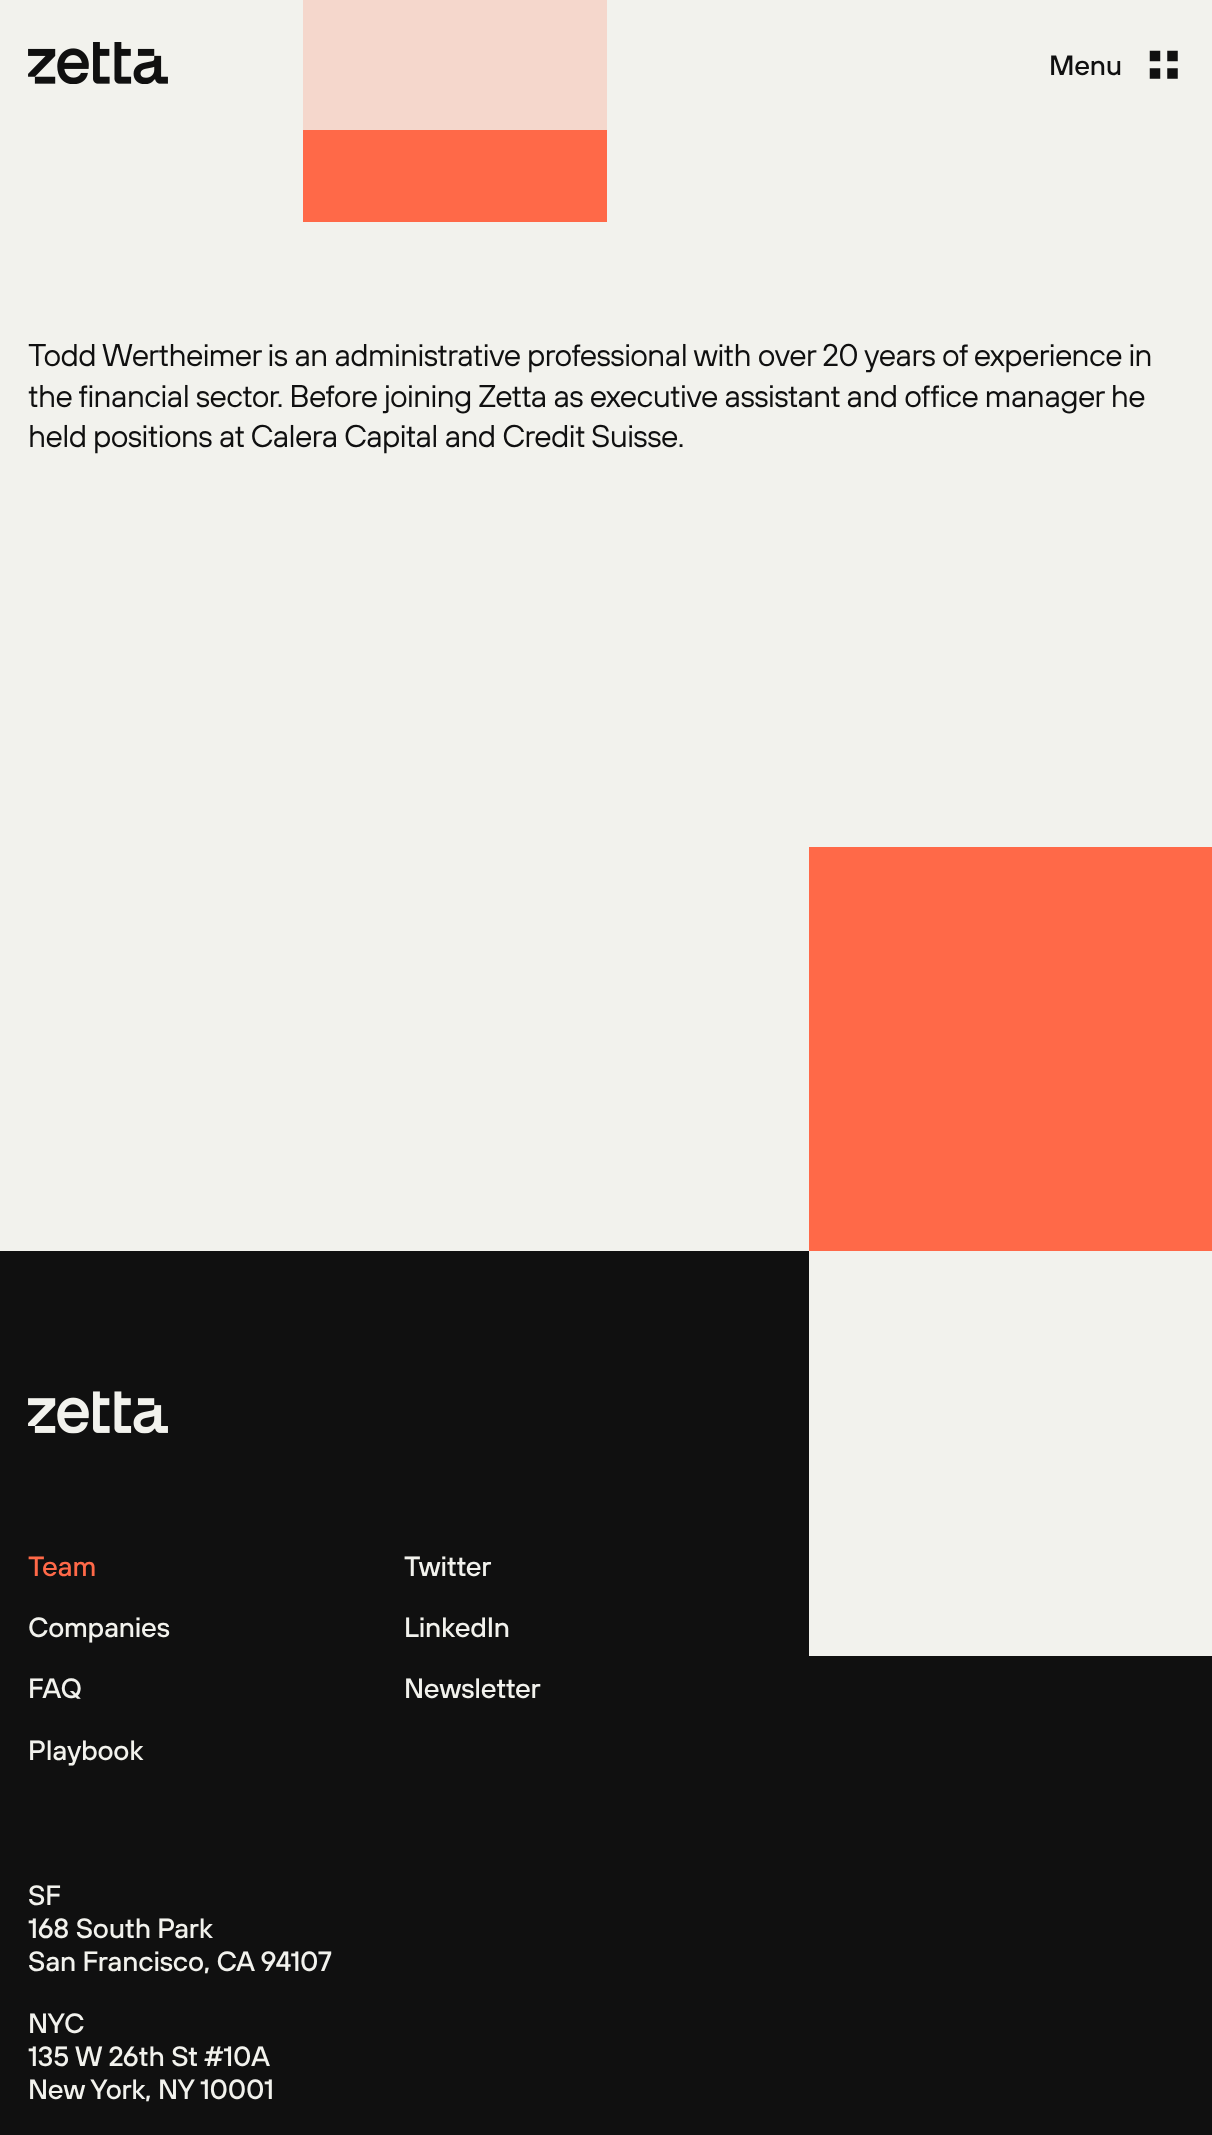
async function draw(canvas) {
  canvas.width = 1212
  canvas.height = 2135
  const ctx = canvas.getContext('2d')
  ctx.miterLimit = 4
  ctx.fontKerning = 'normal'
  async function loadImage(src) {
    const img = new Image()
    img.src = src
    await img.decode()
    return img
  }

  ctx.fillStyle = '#f2f2ed'
  ctx.fillRect(0, 0, 1212, 2135)
  ctx.drawImage(await loadImage('image0.png'), 28, 42, 140, 42)
  ctx.letterSpacing = '-0.25px'
  ctx.font = '500 28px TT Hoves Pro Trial'
  ctx.fillStyle = '#101010'
  ctx.fillText('Menu', 1049, 75)
  ctx.drawImage(await loadImage('image1.png'), 1149, 50, 29, 29)
  ctx.fillStyle = '#ff6948'
  ctx.fillRect(303, 130, 304, 92)
  ctx.fillStyle = '#f5d7cc'
  ctx.fillRect(303, 0, 304, 130)
  ctx.letterSpacing = '-0.63px'
  ctx.font = '31.5px TT Hoves Pro Trial'
  ctx.fillStyle = '#101010'
  ctx.fillText('Todd Wertheimer is an administrative professional with over 20 years of experience in', 28, 366)
  ctx.fillText('the financial sector. Before joining Zetta as executive assistant and office manager he', 28, 407)
  ctx.fillText('held positions at Calera Capital and Credit Suisse.', 28, 447)
  ctx.fillStyle = '#ff6948'
  ctx.fillRect(809, 847, 403, 404)
  ctx.fillStyle = '#101010'
  ctx.fillRect(0, 1251, 1212, 884)
  ctx.fillStyle = '#f2f2ed'
  ctx.fillRect(809, 1251, 403, 405)
  ctx.drawImage(await loadImage('image2.png'), 28, 1391, 140, 43)
  ctx.letterSpacing = '-0.25px'
  ctx.font = '500 28px TT Hoves Pro Trial'
  ctx.fillStyle = '#ff6948'
  ctx.fillText('Team', 28, 1576)
  ctx.fillStyle = '#f2f2ed'
  ctx.fillText('Companies', 28, 1637)
  ctx.fillText('FAQ', 28, 1698)
  ctx.fillText('Playbook', 28, 1760)
  ctx.fillText('Twitter', 404, 1576)
  ctx.fillText('LinkedIn', 404, 1637)
  ctx.fillText('Newsletter', 404, 1698)
  ctx.fillText('SF', 28, 1905)
  ctx.fillText('168 South Park', 28, 1938)
  ctx.fillText('San Francisco, CA 94107', 28, 1971)
  ctx.fillText('NYC', 28, 2033)
  ctx.fillText('135 W 26th St #10A', 28, 2066)
  ctx.fillText('New York, NY 10001', 28, 2099)
}

draw(document.querySelector('canvas'))
